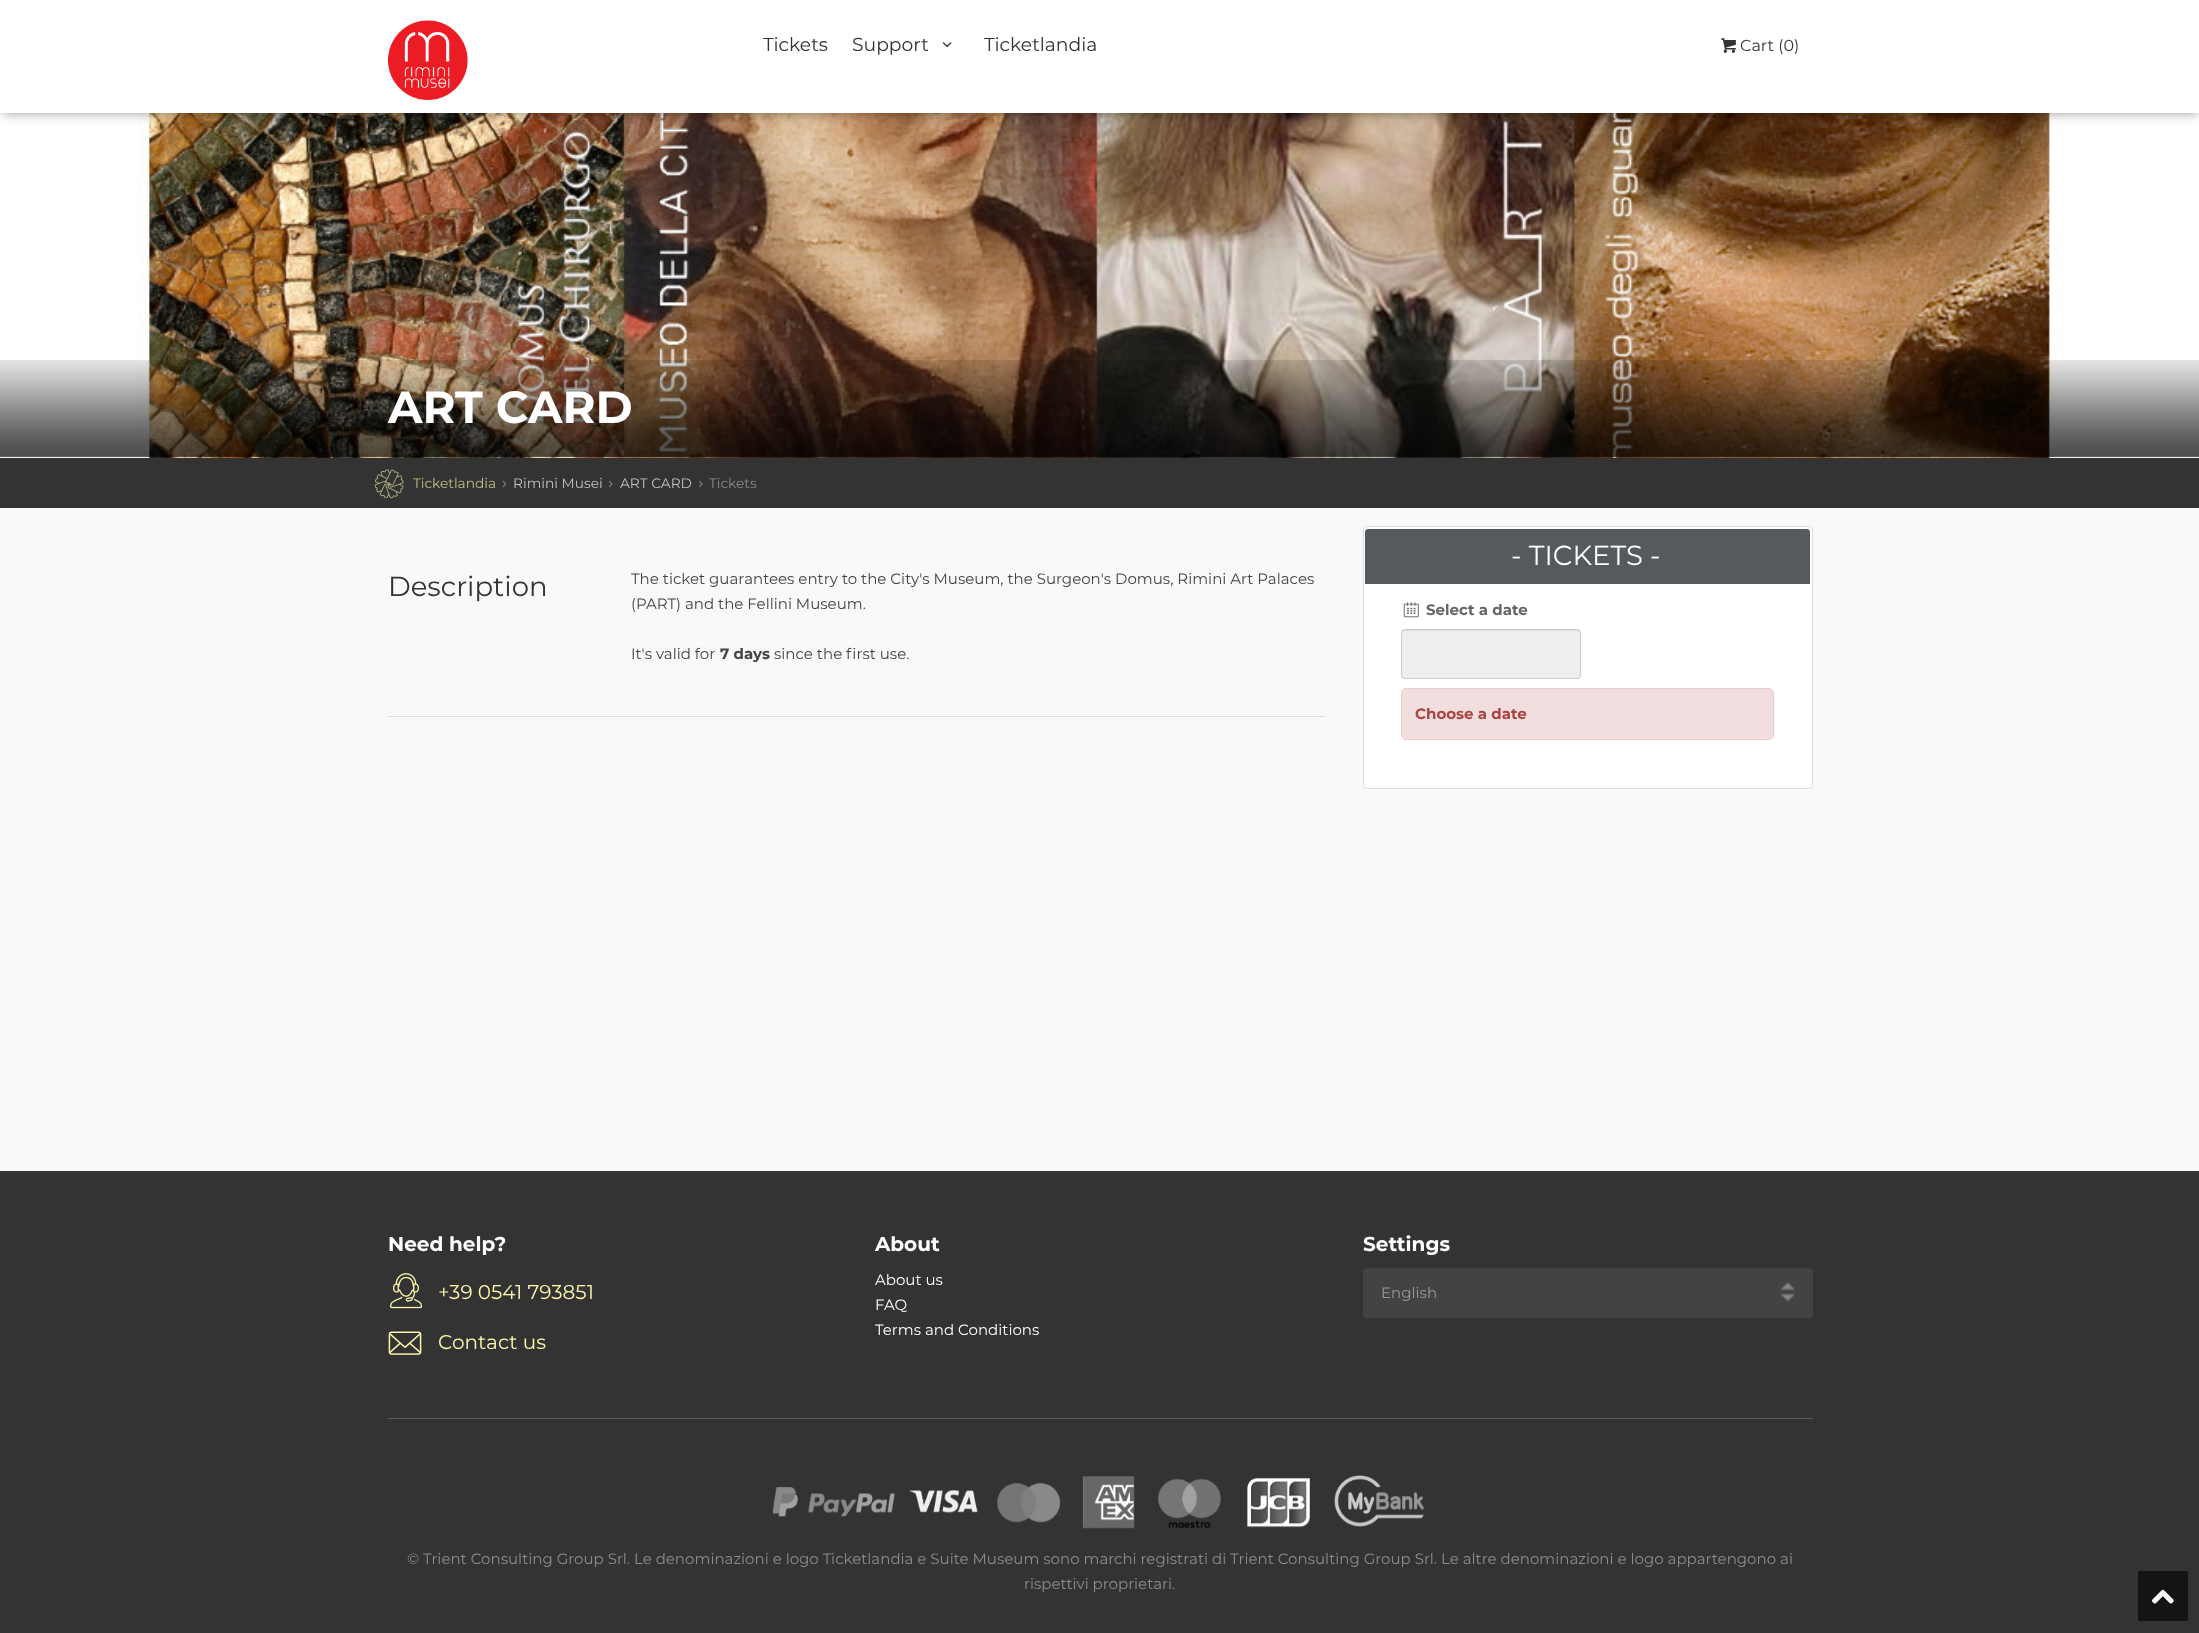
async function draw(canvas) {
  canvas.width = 2199
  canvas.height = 1633
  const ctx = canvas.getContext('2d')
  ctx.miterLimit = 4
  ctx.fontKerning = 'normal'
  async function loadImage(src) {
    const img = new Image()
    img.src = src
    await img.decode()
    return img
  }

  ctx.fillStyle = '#f9f9f9'
  ctx.fillRect(0, 0, 2199, 1633)
  ctx.drawImage(await loadImage('image3.png'), 0, 113, 2199, 345)
  ctx.fillStyle = '#00000069'
  ctx.filter = 'blur(6px)'
  ctx.beginPath()
  ctx.rect(3, 5, 2195, 108)
  ctx.fill()
  ctx.filter = 'none'
  ctx.fillStyle = '#fff'
  ctx.fillRect(0, 0, 2199, 113)
  ctx.drawImage(await loadImage('image0.png'), 387, 20, 81, 80)
  ctx.font = '18.75px Montserrat'
  ctx.fillStyle = '#333'
  ctx.fillText('Tickets', 763, 51)
  ctx.fillText('Support', 852, 51)
  ctx.drawImage(await loadImage('image1.png'), 942, 42, 10, 6)
  ctx.fillText('Ticketlandia', 984, 51)
  ctx.drawImage(await loadImage('image2.png'), 1721, 38, 15, 15)
  ctx.font = '16px Montserrat'
  ctx.fillText('Cart (0)', 1740, 51)
  ctx.drawImage(await loadImage('image4.png'), 0, 360, 2199, 98)
  ctx.font = 'bold 45px Montserrat'
  ctx.fillStyle = '#fff'
  ctx.fillText('ART CARD', 388, 423)
  ctx.fillStyle = '#333'
  ctx.fillRect(0, 458, 2199, 50)
  ctx.drawImage(await loadImage('image5.png'), 374, 469, 30, 30)
  ctx.font = '13.75px Montserrat'
  ctx.fillStyle = '#c0bc88'
  ctx.fillText('Ticketlandia', 413, 488)
  ctx.drawImage(await loadImage('image6.png'), 502, 480, 5, 7)
  ctx.fillStyle = '#c2c2c2'
  ctx.fillText('Rimini Musei', 513, 488)
  ctx.drawImage(await loadImage('image7.png'), 609, 480, 4, 7)
  ctx.fillText('ART CARD', 620, 488)
  ctx.drawImage(await loadImage('image7.png'), 699, 480, 4, 7)
  ctx.fillStyle = '#8c8c8c'
  ctx.fillText('Tickets', 709, 488)
  ctx.font = '27.5px Montserrat'
  ctx.fillStyle = '#333'
  ctx.fillText('Description', 388, 596)
  ctx.font = '15px Montserrat'
  ctx.fillStyle = '#444'
  ctx.fillText('The ticket guarantees entry to the City\'s Museum, the Surgeon\'s Domus, Rimini Art Palaces', 631, 584)
  ctx.fillText('(PART) and the Fellini Museum.', 631, 609)
  ctx.fillText('It\'s valid for', 631, 659)
  ctx.font = 'bold 15px Montserrat'
  ctx.fillText('7 days', 720, 659)
  ctx.font = '15px Montserrat'
  ctx.fillText('since the first use.', 774, 659)
  ctx.fillStyle = '#ddd'
  ctx.fillRect(388, 716, 937, 1)
  ctx.fillStyle = '#fff'
  ctx.beginPath()
  ctx.roundRect(1363.5, 526.5, 449, 262, 3.5)
  ctx.fill()
  ctx.strokeStyle = '#ddd'
  ctx.stroke()
  ctx.fillStyle = '#565a5c'
  ctx.beginPath()
  ctx.roundRect(1364.5, 528.5, 446, 56, [3.5, 3.5, 0, 0])
  ctx.fill()
  ctx.strokeStyle = '#fff'
  ctx.stroke()
  ctx.font = '27.5px Montserrat'
  ctx.fillStyle = '#fff'
  ctx.fillText('- TICKETS -', 1511, 565)
  ctx.drawImage(await loadImage('image8.png'), 1403, 602, 16, 16)
  ctx.font = 'bold 15px Montserrat'
  ctx.fillStyle = '#666'
  ctx.fillText('Select a date', 1426, 615)
  ctx.fillStyle = '#eee'
  ctx.beginPath()
  ctx.roundRect(1401, 629, 180, 50, 4)
  ctx.fill()
  ctx.fillStyle = '#dcdcdc'
  ctx.beginPath()
  ctx.moveTo(1405, 631)
  ctx.lineTo(1578, 631)
  ctx.bezierCurveTo(1579, 631, 1580, 632, 1580, 634)
  ctx.lineTo(1580, 632)
  ctx.bezierCurveTo(1580, 631, 1579, 630, 1578, 630)
  ctx.lineTo(1406, 630)
  ctx.bezierCurveTo(1404, 630, 1403, 631, 1403, 632)
  ctx.closePath()
  ctx.fill()
  ctx.beginPath()
  ctx.roundRect(1401.5, 629.5, 179, 49, 3.5)
  ctx.strokeStyle = '#ccc'
  ctx.stroke()
  ctx.fillStyle = '#f2dede'
  ctx.beginPath()
  ctx.roundRect(1401.5, 688.5, 372, 51, 4.5)
  ctx.fill()
  ctx.strokeStyle = '#ebccd1'
  ctx.stroke()
  ctx.fillStyle = '#a94442'
  ctx.fillText('Choose a date', 1415, 719)
  ctx.fillStyle = '#333'
  ctx.fillRect(0, 1171, 2199, 462)
  ctx.font = 'bold 20px Montserrat'
  ctx.fillStyle = '#fff'
  ctx.fillText('Need help?', 388, 1251)
  ctx.drawImage(await loadImage('image9.png'), 389, 1273, 34, 36)
  ctx.font = '20px Montserrat'
  ctx.fillStyle = '#fdf7ac'
  ctx.fillText('+39 0541 793851', 438, 1299)
  ctx.drawImage(await loadImage('image10.png'), 388, 1331, 34, 24)
  ctx.fillText('Contact us', 438, 1349)
  ctx.font = 'bold 20px Montserrat'
  ctx.fillStyle = '#fff'
  ctx.fillText('About', 875, 1251)
  ctx.font = '15px Montserrat'
  ctx.fillText('About us', 875, 1285)
  ctx.fillText('FAQ', 875, 1310)
  ctx.fillText('Terms and Conditions', 875, 1335)
  ctx.font = 'bold 20px Montserrat'
  ctx.fillText('Settings', 1363, 1251)
  ctx.fillStyle = '#434343'
  ctx.beginPath()
  ctx.roundRect(1363, 1268, 450, 50, 4)
  ctx.fill()
  ctx.drawImage(await loadImage('image11.png'), 1780, 1282, 15, 20)
  ctx.save()
  ctx.beginPath()
  ctx.roundRect(1363, 1268, 450, 50, 4)
  ctx.clip()
  ctx.fillStyle = '#00000012'
  ctx.fillRect(1363, 1268, 450, 1)
  ctx.restore()
  ctx.font = '15px Montserrat'
  ctx.fillStyle = '#999'
  ctx.fillText('English', 1381, 1298)
  ctx.fillStyle = '#5c5c5c'
  ctx.fillRect(388, 1418, 1425, 1)
  ctx.drawImage(await loadImage('image12.png'), 772, 1475, 652, 54)
  ctx.fillStyle = '#8c8c8c'
  ctx.fillText('© Trient Consulting Group Srl. Le denominazioni e logo Ticketlandia e Suite Museum sono marchi registrati di Trient Consulting Group Srl. Le altre denominazioni e logo appartengono ai', 407, 1564)
  ctx.fillText('rispettivi proprietari.', 1024, 1589)
  ctx.fillStyle = '#141414'
  ctx.fillRect(2138, 1571, 50, 50)
  ctx.drawImage(await loadImage('image13.png'), 2152, 1589, 22, 15)
}

draw(document.querySelector('canvas'))
